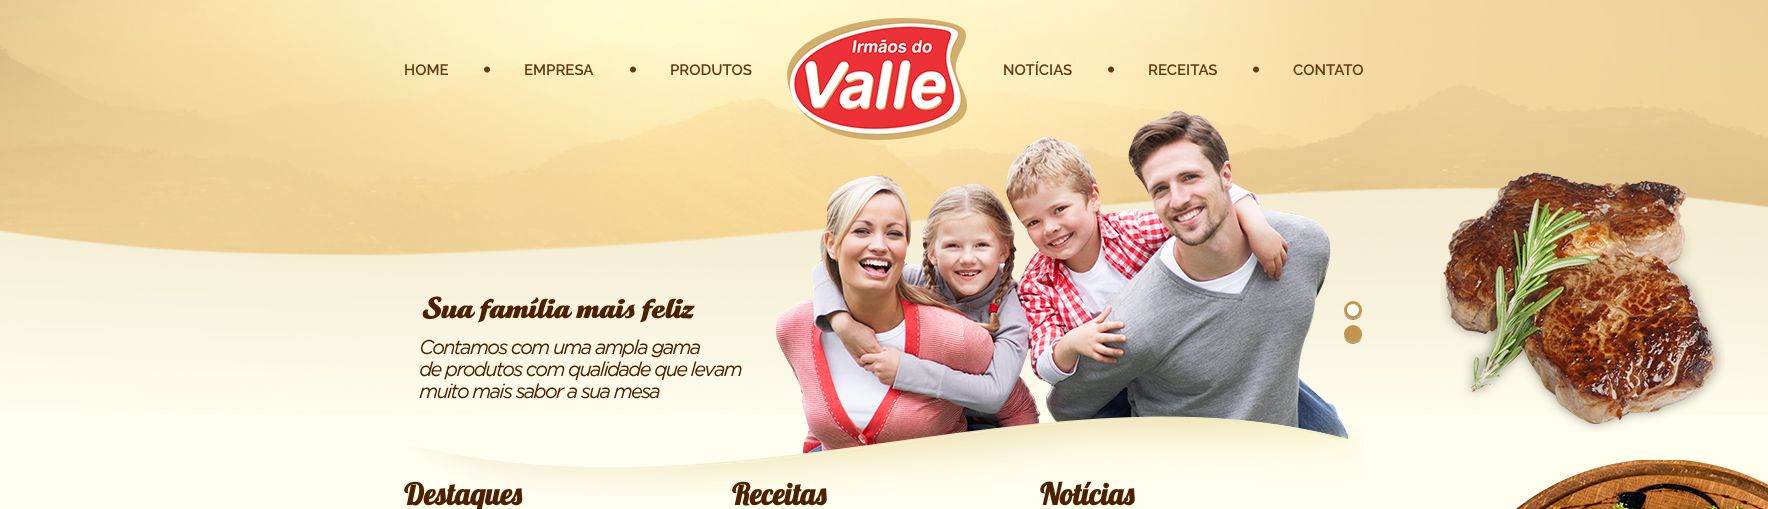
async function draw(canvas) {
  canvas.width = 1768
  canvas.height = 509
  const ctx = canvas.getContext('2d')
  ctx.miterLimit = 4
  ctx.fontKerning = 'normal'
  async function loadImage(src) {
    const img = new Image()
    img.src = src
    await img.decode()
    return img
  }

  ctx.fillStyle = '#fffeef'
  ctx.fillRect(0, 0, 1768, 509)
  ctx.drawImage(await loadImage('image0.png'), 0, 0, 1768, 257)
  ctx.font = '600 15px Raleway'
  ctx.fillStyle = '#633c13'
  ctx.fillText('HOME', 404, 75)
  ctx.drawImage(await loadImage('image1.png'), 484, 66, 6, 7)
  ctx.fillText('EMPRESA', 524, 75)
  ctx.drawImage(await loadImage('image2.png'), 630, 66, 6, 7)
  ctx.fillText('PRODUTOS', 670, 75)
  ctx.drawImage(await loadImage('image7.png'), 0, 187, 1768, 228)
  ctx.drawImage(await loadImage('image8.png'), 419, 110, 929, 345)
  ctx.drawImage(await loadImage('image3.png'), 787, 18, 180, 122)
  ctx.fillText('NOTÍCIAS', 1003, 75)
  ctx.drawImage(await loadImage('image4.png'), 1108, 66, 6, 7)
  ctx.fillText('RECEITAS', 1148, 75)
  ctx.drawImage(await loadImage('image5.png'), 1253, 66, 6, 7)
  ctx.fillText('CONTATO', 1293, 75)
  ctx.drawImage(await loadImage('image6.png'), 1440, 172, 285, 260)
  ctx.fillStyle = '#959285'
  ctx.beginPath()
  ctx.moveTo(1362, 310.5)
  ctx.bezierCurveTo(1361.5, 321.5, 1344.5, 321.5, 1344, 310.5)
  ctx.bezierCurveTo(1343.5, 323, 1362.5, 323, 1362, 310.5)
  ctx.closePath()
  ctx.fill()
  ctx.fillStyle = '#fff'
  ctx.beginPath()
  ctx.arc(1353, 310, 7.5, 0, 2 * Math.PI)
  ctx.fill()
  ctx.strokeStyle = '#bf964b'
  ctx.lineWidth = 3
  ctx.stroke()
  ctx.fillStyle = '#969488'
  ctx.beginPath()
  ctx.moveTo(1362, 334.5)
  ctx.bezierCurveTo(1361.5, 345.5, 1344.5, 345.5, 1344, 334.5)
  ctx.bezierCurveTo(1343.5, 347, 1362.5, 347, 1362, 334.5)
  ctx.closePath()
  ctx.fill()
  ctx.fillStyle = '#bf964b'
  ctx.beginPath()
  ctx.arc(1353, 334, 9, 0, 2 * Math.PI)
  ctx.fill()
  ctx.drawImage(await loadImage('image9.png'), 407, 416, 957, 80)
  ctx.font = 'bold 30px Lobster'
  ctx.fillStyle = '#4d2100'
  ctx.fillText('Destaques', 404, 505)
  ctx.fillText('Receitas', 732, 505)
  ctx.fillText('Notícias', 1040, 505)
  ctx.drawImage(await loadImage('image10.png'), 1516, 460, 252, 49)
}

draw(document.querySelector('canvas'))
